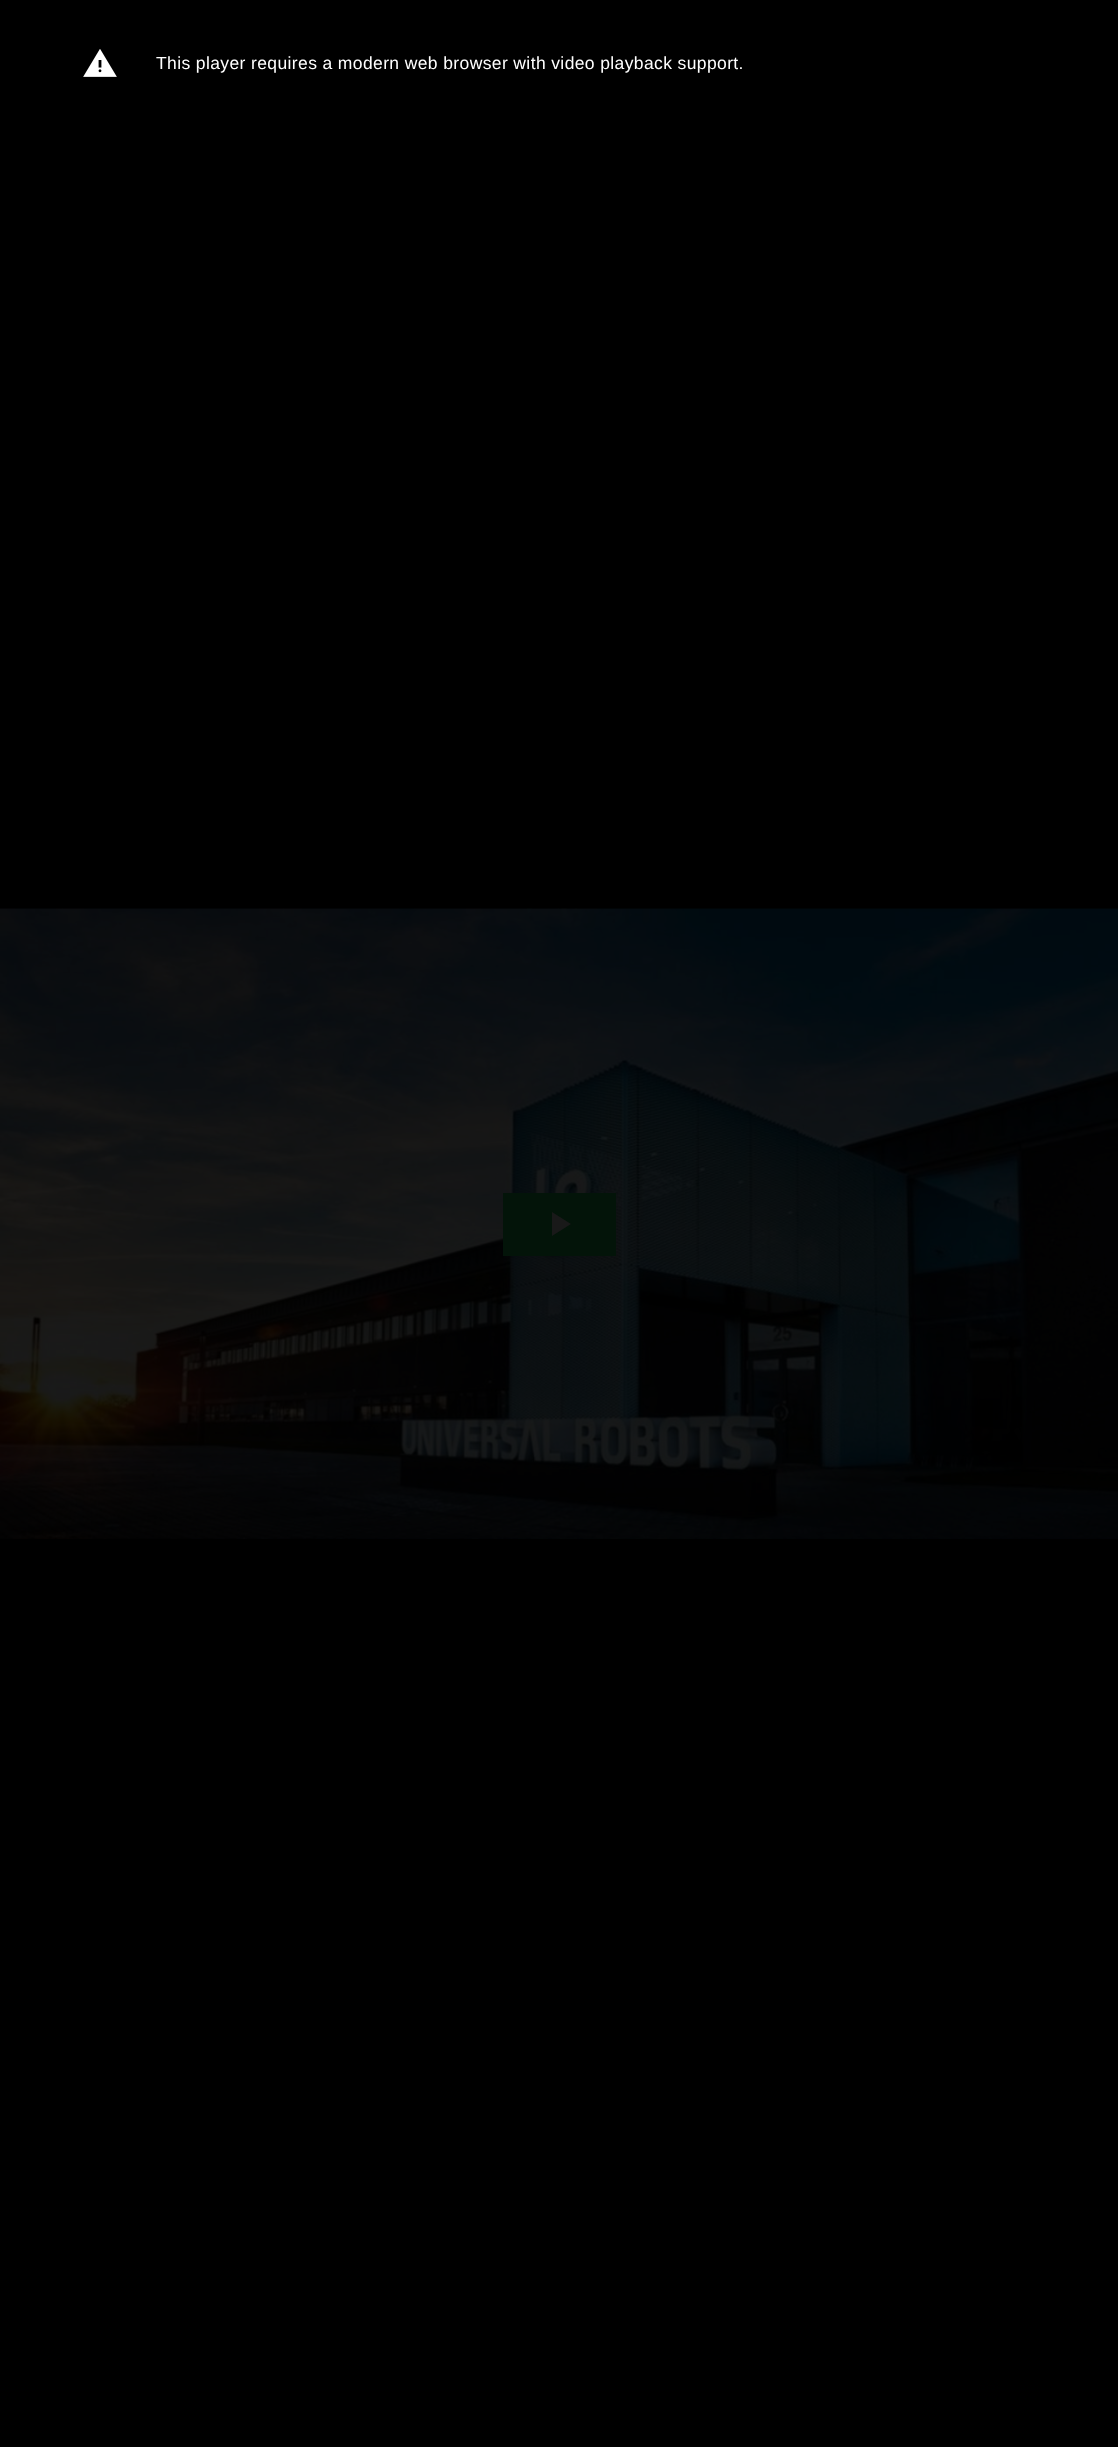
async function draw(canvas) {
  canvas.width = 1118
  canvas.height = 2447
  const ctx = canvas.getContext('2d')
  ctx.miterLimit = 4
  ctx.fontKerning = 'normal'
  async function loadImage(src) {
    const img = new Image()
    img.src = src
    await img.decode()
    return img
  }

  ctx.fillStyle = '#000'
  ctx.fillRect(0, 0, 1118, 2447)
  ctx.drawImage(await loadImage('image0.png'), 83, 49, 34, 28)
  ctx.letterSpacing = '0.38px'
  ctx.font = '17.5px Liberation Sans'
  ctx.fillStyle = '#fff'
  ctx.fillText('This player requires a modern web browser with video playback support.', 156, 69)
  ctx.drawImage(await loadImage('image1.png'), 0, 908, 1118, 631)
  ctx.drawImage(await loadImage('image2.png'), 0, 908, 1118, 631)
  ctx.fillStyle = '#031409'
  ctx.fillRect(503, 1193, 113, 63)
  ctx.fillStyle = '#191919'
  ctx.beginPath()
  ctx.moveTo(552, 1212)
  ctx.lineTo(552, 1236)
  ctx.lineTo(571, 1224)
  ctx.closePath()
  ctx.fill()
}

draw(document.querySelector('canvas'))
